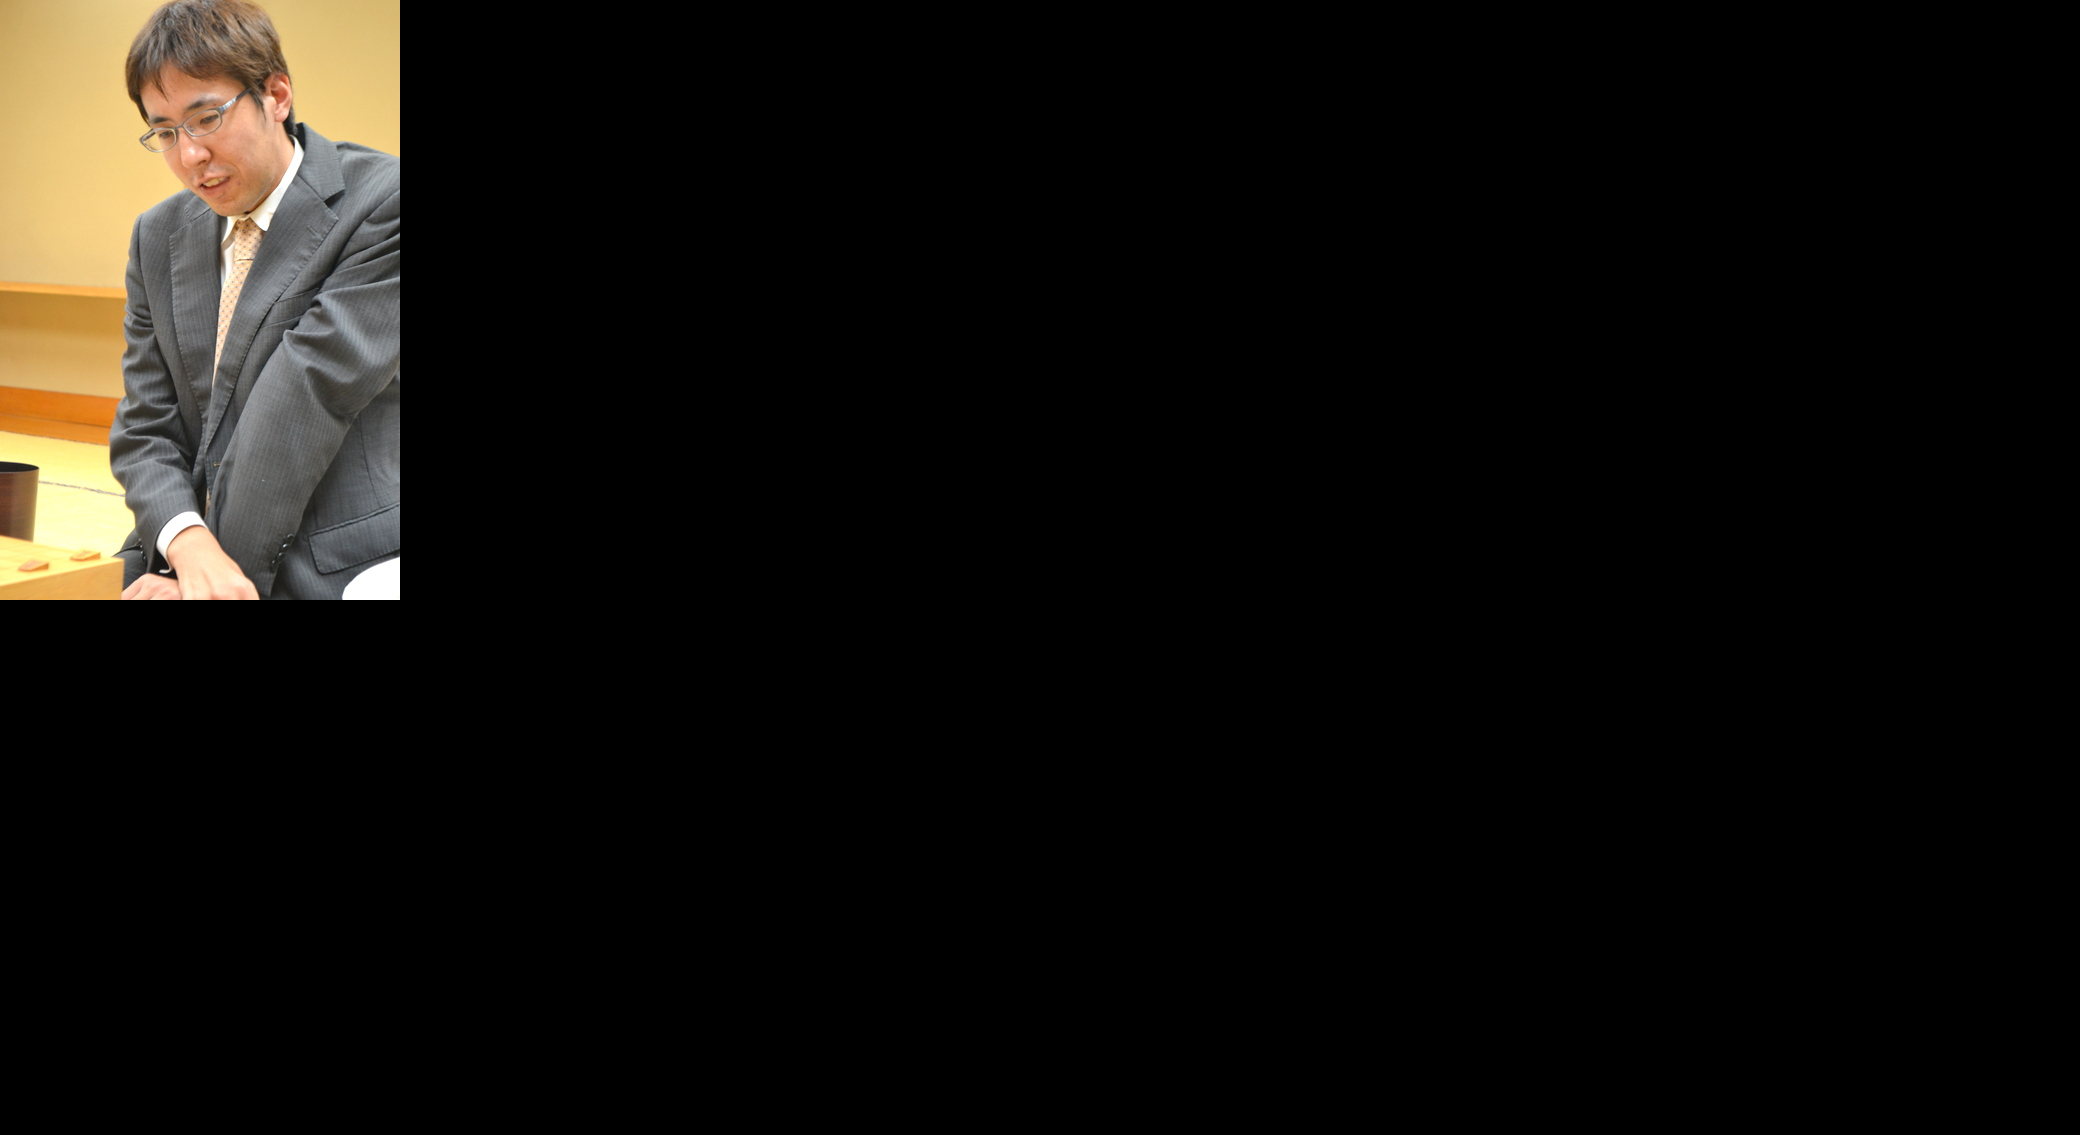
async function draw(canvas) {
  canvas.width = 2080
  canvas.height = 1135
  const ctx = canvas.getContext('2d')
  ctx.miterLimit = 4
  ctx.fontKerning = 'normal'
  async function loadImage(src) {
    const img = new Image()
    img.src = src
    await img.decode()
    return img
  }

  ctx.fillStyle = '#000'
  ctx.fillRect(0, 0, 2080, 1135)
  ctx.drawImage(await loadImage('image0.png'), 0, 0, 400, 600)
}

draw(document.querySelector('canvas'))
